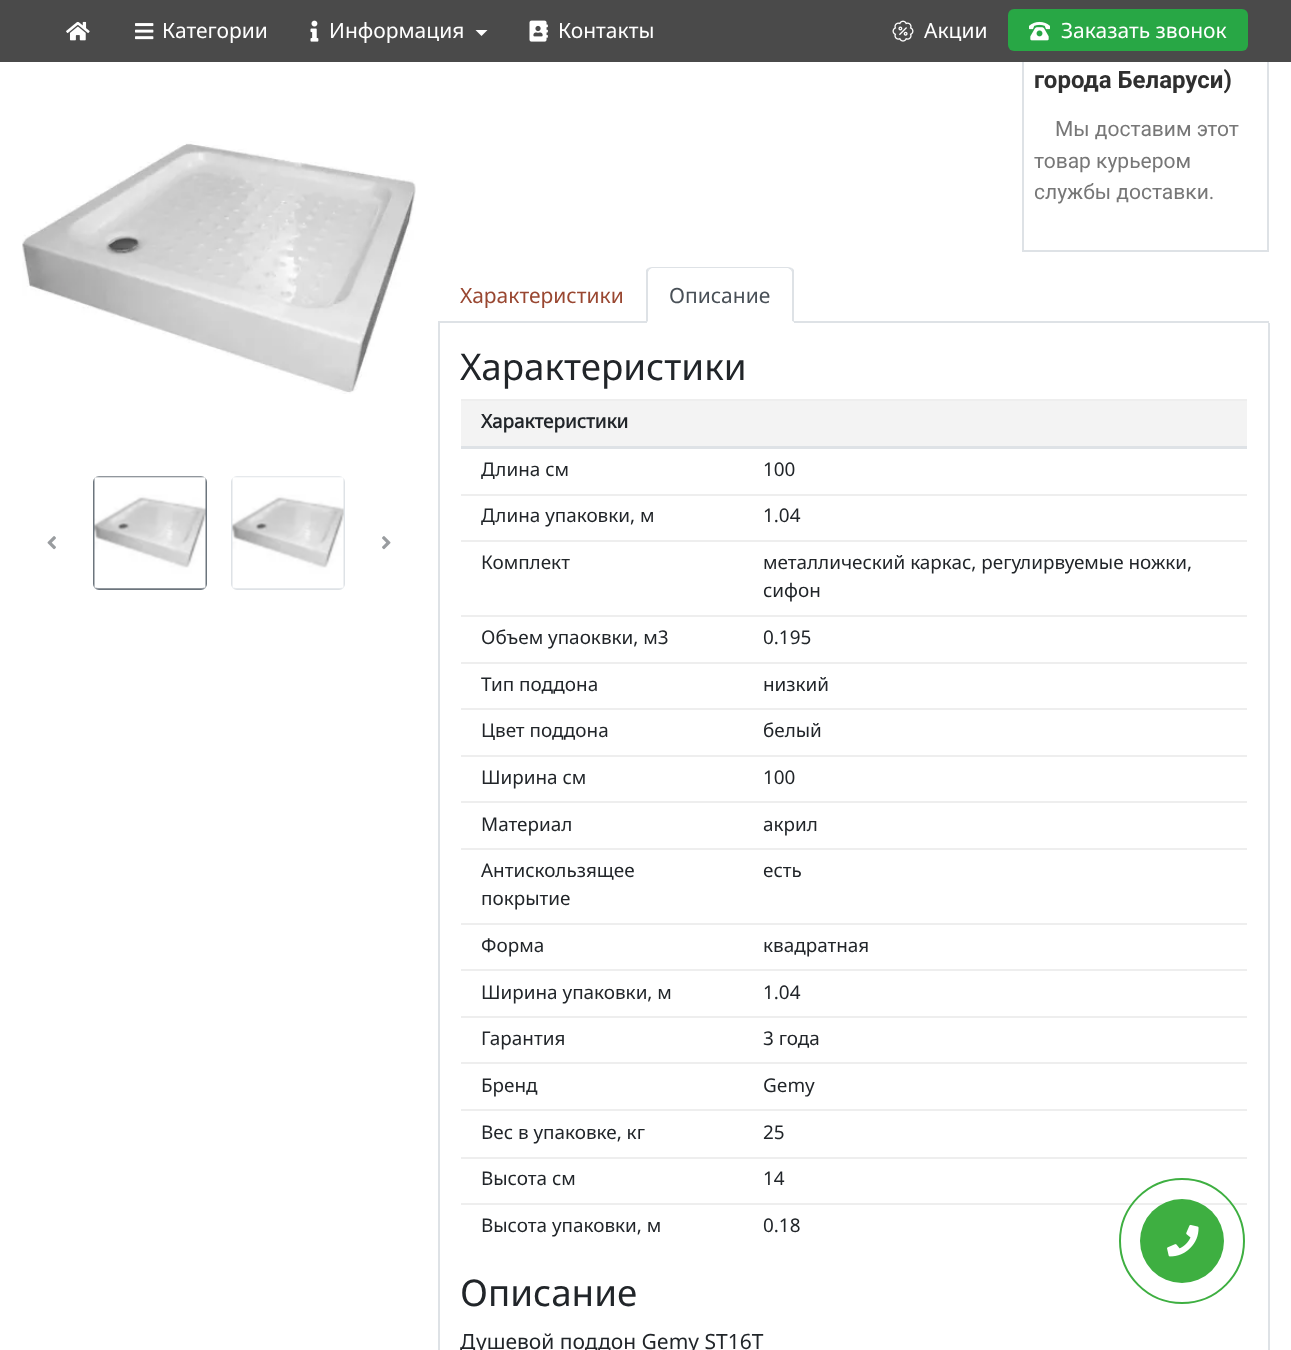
async function draw(canvas) {
  canvas.width = 1291
  canvas.height = 1350
  const ctx = canvas.getContext('2d')
  ctx.miterLimit = 4
  ctx.fontKerning = 'normal'
  async function loadImage(src) {
    const img = new Image()
    img.src = src
    await img.decode()
    return img
  }

  ctx.fillStyle = '#fff'
  ctx.fillRect(0, 0, 1291, 1350)
  ctx.strokeStyle = '#dee2e6'
  ctx.lineWidth = 2
  ctx.strokeRect(1023, -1, 245, 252)
  ctx.fillStyle = '#4a4a4a'
  ctx.fillRect(0, 0, 1291, 62)
  ctx.drawImage(await loadImage('image0.png'), 66, 21, 24, 20)
  ctx.drawImage(await loadImage('image1.png'), 135, 23, 19, 17)
  ctx.font = '21px Noto Sans'
  ctx.fillStyle = '#fff'
  ctx.fillText('Категории', 162, 38)
  ctx.drawImage(await loadImage('image2.png'), 310, 20, 9, 22)
  ctx.fillText('Информация', 329, 38)
  ctx.beginPath()
  ctx.moveTo(475.5, 30)
  ctx.lineTo(487.5, 30)
  ctx.lineTo(481.5, 36)
  ctx.closePath()
  ctx.fill()
  ctx.drawImage(await loadImage('image3.png'), 529, 20, 19, 22)
  ctx.fillText('Контакты', 558, 38)
  ctx.drawImage(await loadImage('image4.png'), 892, 20, 22, 22)
  ctx.fillText('Акции', 924, 38)
  ctx.fillStyle = '#28a745'
  ctx.beginPath()
  ctx.roundRect(1008, 9, 240, 42, 6)
  ctx.fill()
  ctx.drawImage(await loadImage('image5.png'), 1029, 21, 21, 20)
  ctx.fillStyle = '#fff'
  ctx.fillText('Заказать звонок', 1061, 38)
  ctx.drawImage(await loadImage('image6.png'), 22, 141, 394, 253)
  ctx.drawImage(await loadImage('image7.png'), 47, 536, 9, 14)
  ctx.beginPath()
  ctx.roundRect(94, 477, 112, 112, 5)
  ctx.strokeStyle = '#6c757d'
  ctx.stroke()
  ctx.drawImage(await loadImage('image8.png'), 94, 476, 112, 113)
  ctx.beginPath()
  ctx.roundRect(232, 477, 112, 112, 5)
  ctx.strokeStyle = '#dee2e6'
  ctx.stroke()
  ctx.drawImage(await loadImage('image9.png'), 232, 476, 112, 113)
  ctx.drawImage(await loadImage('image10.png'), 382, 536, 9, 14)
  ctx.font = 'bold 24px Roboto'
  ctx.fillStyle = '#2f2f2f'
  ctx.fillText('города Беларуси)', 1034, 88)
  ctx.font = '21px Roboto'
  ctx.fillStyle = '#777'
  ctx.fillText('Мы доставим этот', 1055, 136)
  ctx.fillText('товар курьером', 1034, 168)
  ctx.fillText('службы доставки.', 1034, 199)
  ctx.fillStyle = '#dee2e6'
  ctx.fillRect(438, 321, 831, 2)
  ctx.font = '21px Noto Sans'
  ctx.fillStyle = '#994731'
  ctx.fillText('Характеристики', 460, 303)
  ctx.fillStyle = '#fff'
  ctx.beginPath()
  ctx.roundRect(647, 267, 147, 56, [6, 6, 0, 0])
  ctx.fill()
  ctx.fillStyle = '#dee2e6'
  ctx.beginPath()
  ctx.moveTo(652, 267)
  ctx.bezierCurveTo(650, 267, 649, 268, 648, 268)
  ctx.lineTo(649, 270)
  ctx.bezierCurveTo(650, 269, 651, 268, 652, 268)
  ctx.lineTo(788, 268)
  ctx.lineTo(791, 270)
  ctx.lineTo(792, 268)
  ctx.bezierCurveTo(791, 268, 790, 267, 788, 267)
  ctx.closePath()
  ctx.fill()
  ctx.beginPath()
  ctx.moveTo(794, 322)
  ctx.lineTo(792, 321)
  ctx.lineTo(792, 272)
  ctx.lineTo(791, 270)
  ctx.lineTo(792, 268)
  ctx.lineTo(794, 270)
  ctx.closePath()
  ctx.fill()
  ctx.fillStyle = '#fff'
  ctx.beginPath()
  ctx.moveTo(793, 322)
  ctx.lineTo(647, 322)
  ctx.lineTo(648, 321)
  ctx.lineTo(792, 321)
  ctx.closePath()
  ctx.fill()
  ctx.fillStyle = '#dee2e6'
  ctx.beginPath()
  ctx.moveTo(646, 270)
  ctx.lineTo(648, 268)
  ctx.lineTo(649, 270)
  ctx.lineTo(648, 272)
  ctx.lineTo(648, 321)
  ctx.lineTo(647, 322)
  ctx.lineTo(646, 322)
  ctx.closePath()
  ctx.fill()
  ctx.fillStyle = '#495057'
  ctx.fillText('Описание', 669, 303)
  ctx.fillStyle = '#dee2e6'
  ctx.fillRect(1268, 323, 2, 1027)
  ctx.fillRect(438, 323, 2, 1027)
  ctx.font = '36.75px Noto Sans'
  ctx.fillStyle = '#212529'
  ctx.fillText('Характеристики', 460, 380)
  ctx.fillStyle = '#f3f3f3'
  ctx.fillRect(461, 401, 786, 45)
  ctx.fillStyle = '#eee'
  ctx.fillRect(461, 399, 786, 2)
  ctx.fillStyle = '#dee2e6'
  ctx.fillRect(461, 446, 786, 3)
  ctx.font = 'bold 18.9px Noto Sans'
  ctx.fillStyle = '#212529'
  ctx.fillText('Характеристики', 481, 428)
  ctx.font = '18.9px Noto Sans'
  ctx.fillText('Длина см', 481, 476)
  ctx.fillText('100', 763, 476)
  ctx.fillText('Длина упаковки, м', 481, 522)
  ctx.fillStyle = '#eee'
  ctx.fillRect(461, 494, 786, 2)
  ctx.fillStyle = '#212529'
  ctx.fillText('1.04', 763, 522)
  ctx.fillText('Комплект', 481, 569)
  ctx.fillStyle = '#eee'
  ctx.fillRect(461, 540, 786, 2)
  ctx.fillStyle = '#212529'
  ctx.fillText('металлический каркас, регулирвуемые ножки,', 763, 569)
  ctx.fillText('сифон', 763, 597)
  ctx.fillText('Объем упаоквки, м3', 481, 644)
  ctx.fillStyle = '#eee'
  ctx.fillRect(461, 615, 786, 2)
  ctx.fillStyle = '#212529'
  ctx.fillText('0.195', 763, 644)
  ctx.fillText('Тип поддона', 481, 691)
  ctx.fillStyle = '#eee'
  ctx.fillRect(461, 662, 786, 2)
  ctx.fillStyle = '#212529'
  ctx.fillText('низкий', 763, 691)
  ctx.fillText('Цвет поддона', 481, 737)
  ctx.fillStyle = '#eee'
  ctx.fillRect(461, 708, 786, 2)
  ctx.fillStyle = '#212529'
  ctx.fillText('белый', 763, 737)
  ctx.fillText('Ширина см', 481, 784)
  ctx.fillStyle = '#eee'
  ctx.fillRect(461, 755, 786, 2)
  ctx.fillStyle = '#212529'
  ctx.fillText('100', 763, 784)
  ctx.fillText('Материал', 481, 831)
  ctx.fillStyle = '#eee'
  ctx.fillRect(461, 801, 786, 2)
  ctx.fillStyle = '#212529'
  ctx.fillText('акрил', 763, 831)
  ctx.fillText('Антискользящее', 481, 877)
  ctx.fillText('покрытие', 481, 905)
  ctx.fillStyle = '#eee'
  ctx.fillRect(461, 848, 786, 2)
  ctx.fillStyle = '#212529'
  ctx.fillText('есть', 763, 877)
  ctx.fillText('Форма', 481, 952)
  ctx.fillStyle = '#eee'
  ctx.fillRect(461, 923, 786, 2)
  ctx.fillStyle = '#212529'
  ctx.fillText('квадратная', 763, 952)
  ctx.fillText('Ширина упаковки, м', 481, 999)
  ctx.fillStyle = '#eee'
  ctx.fillRect(461, 969, 786, 2)
  ctx.fillStyle = '#212529'
  ctx.fillText('1.04', 763, 999)
  ctx.fillText('Гарантия', 481, 1045)
  ctx.fillStyle = '#eee'
  ctx.fillRect(461, 1016, 786, 2)
  ctx.fillStyle = '#212529'
  ctx.fillText('3 года', 763, 1045)
  ctx.fillText('Бренд', 481, 1092)
  ctx.fillStyle = '#eee'
  ctx.fillRect(461, 1062, 786, 2)
  ctx.fillStyle = '#212529'
  ctx.fillText('Gemy', 763, 1092)
  ctx.fillText('Вес в упаковке, кг', 481, 1139)
  ctx.fillStyle = '#eee'
  ctx.fillRect(461, 1109, 786, 2)
  ctx.fillStyle = '#212529'
  ctx.fillText('25', 763, 1139)
  ctx.fillText('Высота см', 481, 1185)
  ctx.fillStyle = '#eee'
  ctx.fillRect(461, 1157, 786, 2)
  ctx.fillStyle = '#212529'
  ctx.fillText('14', 763, 1185)
  ctx.fillText('Высота упаковки, м', 481, 1232)
  ctx.fillStyle = '#eee'
  ctx.fillRect(461, 1203, 786, 2)
  ctx.fillStyle = '#212529'
  ctx.fillText('0.18', 763, 1232)
  ctx.font = '36.75px Noto Sans'
  ctx.fillText('Описание', 460, 1306)
  ctx.font = '21px Noto Sans'
  ctx.fillText('Душевой поддон Gemy ST16T', 460, 1349)
  ctx.fillStyle = '#3eaf41'
  ctx.beginPath()
  ctx.arc(1182, 1241, 42, 0, 2 * Math.PI)
  ctx.fill()
  ctx.drawImage(await loadImage('image11.png'), 1167, 1224, 32, 33)
  ctx.beginPath()
  ctx.arc(1182, 1241, 62, 0, 2 * Math.PI)
  ctx.strokeStyle = '#3eaf41'
  ctx.stroke()
}

draw(document.querySelector('canvas'))
